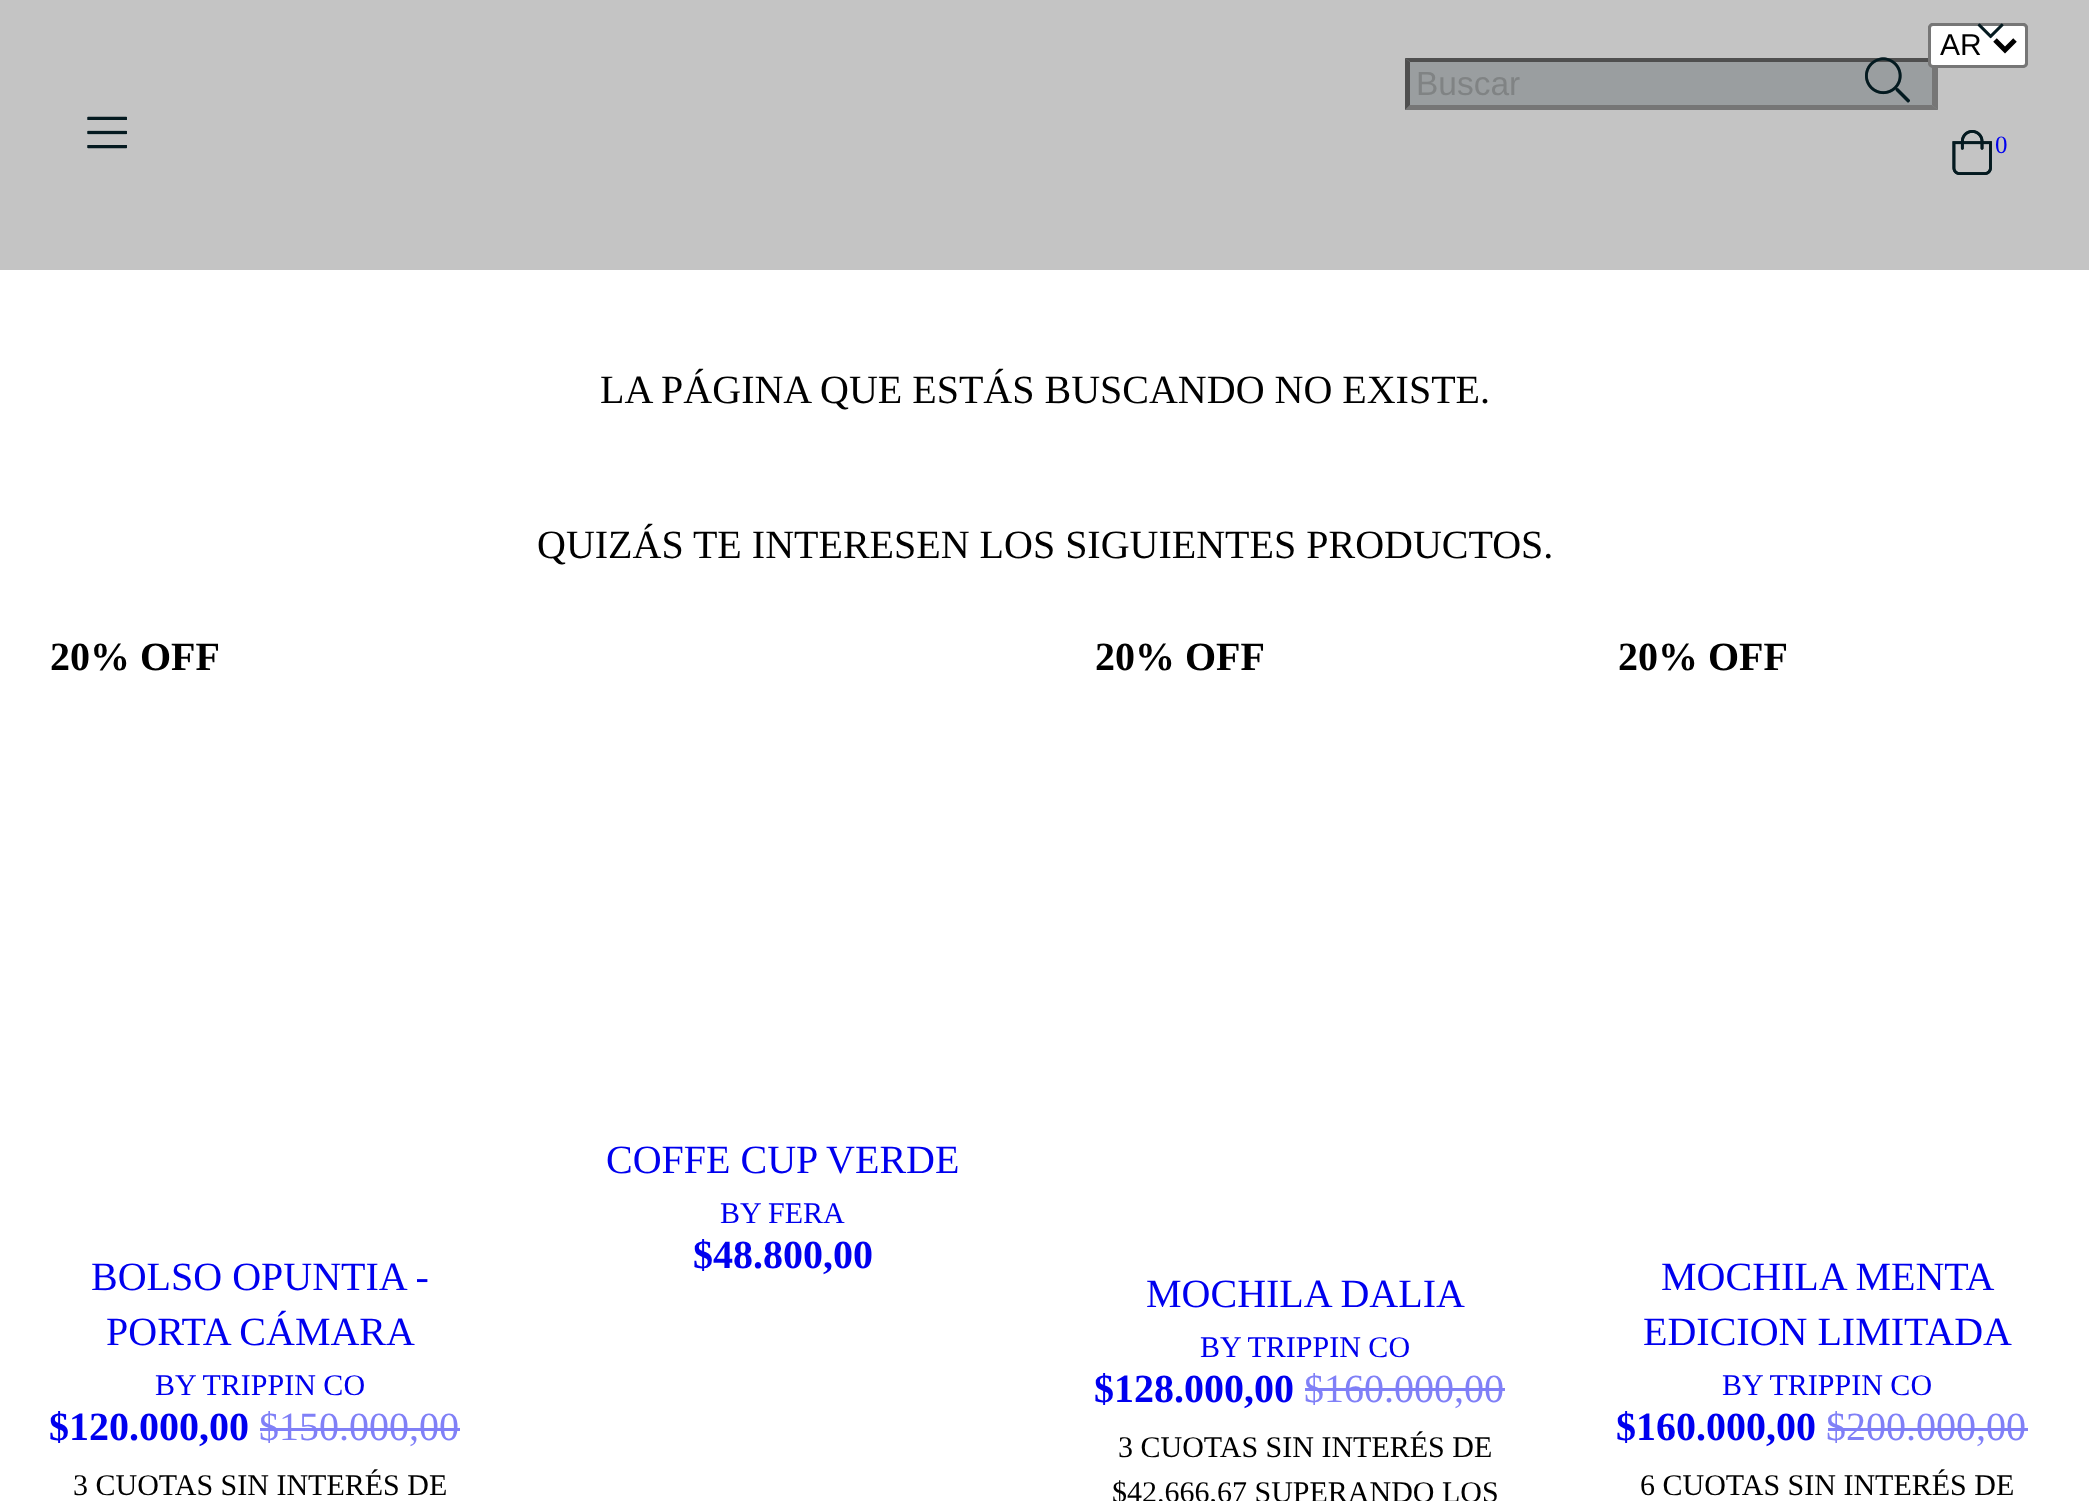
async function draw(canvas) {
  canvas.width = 2089
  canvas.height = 1501
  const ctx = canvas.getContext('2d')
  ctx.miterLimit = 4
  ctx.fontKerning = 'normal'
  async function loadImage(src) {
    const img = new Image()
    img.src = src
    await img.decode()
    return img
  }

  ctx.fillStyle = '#fff'
  ctx.fillRect(0, 0, 2089, 1501)
  ctx.fillStyle = '#c4c4c4'
  ctx.fillRect(0, 0, 2089, 270)
  ctx.fillStyle = '#a8abac'
  ctx.fillRect(1405, 58, 533, 52)
  ctx.font = '33.5px Liberation Sans'
  ctx.fillStyle = '#757575'
  ctx.fillText('Buscar', 1416, 95)
  ctx.drawImage(await loadImage('image5.png'), 1865, 57, 45, 46)
  ctx.beginPath()
  ctx.roundRect(1929.5, 24.5, 97, 42, 3.5)
  ctx.strokeStyle = '#767676'
  ctx.lineWidth = 3
  ctx.stroke()
  ctx.fillStyle = '#8b919480'
  ctx.fillRect(1405, 58, 533, 52)
  ctx.fillStyle = '#4f4f4f'
  ctx.beginPath()
  ctx.moveTo(1405, 58)
  ctx.lineTo(1938, 58)
  ctx.lineTo(1932, 62)
  ctx.lineTo(1410, 62)
  ctx.closePath()
  ctx.fill()
  ctx.fillStyle = '#767676'
  ctx.beginPath()
  ctx.moveTo(1938, 58)
  ctx.lineTo(1938, 110)
  ctx.lineTo(1932, 105)
  ctx.lineTo(1932, 62)
  ctx.closePath()
  ctx.fill()
  ctx.fillStyle = '#fff'
  ctx.beginPath()
  ctx.roundRect(1929.5, 24.5, 97, 42, 3.5)
  ctx.fill()
  ctx.stroke()
  ctx.beginPath()
  ctx.moveTo(1995, 40)
  ctx.lineTo(2005, 50)
  ctx.lineTo(2015, 40)
  ctx.strokeStyle = '#000'
  ctx.lineWidth = 5
  ctx.stroke()
  ctx.font = '30px Liberation Sans'
  ctx.fillStyle = '#000'
  ctx.fillText('AR', 1940, 55)
  ctx.drawImage(await loadImage('image0.png'), 1977, 23, 27, 16)
  ctx.drawImage(await loadImage('image6.png'), 1952, 130, 40, 45)
  ctx.drawImage(await loadImage('image1.png'), 1952, 130, 40, 45)
  ctx.drawImage(await loadImage('image2.png'), 1865, 57, 45, 46)
  ctx.fillStyle = '#767676'
  ctx.beginPath()
  ctx.moveTo(1938, 110)
  ctx.lineTo(1405, 110)
  ctx.lineTo(1410, 105)
  ctx.lineTo(1932, 105)
  ctx.closePath()
  ctx.fill()
  ctx.fillStyle = '#4f4f4f'
  ctx.beginPath()
  ctx.moveTo(1405, 110)
  ctx.lineTo(1405, 58)
  ctx.lineTo(1410, 62)
  ctx.lineTo(1410, 105)
  ctx.closePath()
  ctx.fill()
  ctx.drawImage(await loadImage('image4.png'), 87, 116, 40, 33)
  ctx.drawImage(await loadImage('image3.png'), 87, 116, 40, 33)
  ctx.font = '25px Liberation Serif'
  ctx.fillStyle = '#00e'
  ctx.fillText('0', 1995, 153)
  ctx.font = '40px Liberation Serif'
  ctx.fillStyle = '#000'
  ctx.fillText('LA PÁGINA QUE ESTÁS BUSCANDO NO EXISTE.', 600, 403)
  ctx.fillText('QUIZÁS TE INTERESEN LOS SIGUIENTES PRODUCTOS.', 537, 558)
  ctx.font = 'bold 40px Liberation Serif'
  ctx.fillText('20% OFF', 50, 670)
  ctx.font = '40px Liberation Serif'
  ctx.fillStyle = '#00e'
  ctx.fillText('BOLSO OPUNTIA -', 91, 1290)
  ctx.fillText('PORTA CÁMARA', 106, 1345)
  ctx.font = '30px Liberation Serif'
  ctx.fillText('BY TRIPPIN CO', 155, 1395)
  ctx.font = 'bold 40px Liberation Serif'
  ctx.fillText('$120.000,00', 49, 1440)
  ctx.font = '40px Liberation Serif'
  ctx.fillStyle = '#8080f7'
  ctx.fillText('$150.000,00', 259, 1440)
  ctx.fillRect(260, 1428, 200, 3)
  ctx.font = '30px Liberation Serif'
  ctx.fillStyle = '#000'
  ctx.fillText('3 CUOTAS SIN INTERÉS DE', 73, 1495)
  ctx.font = '40px Liberation Serif'
  ctx.fillStyle = '#00e'
  ctx.fillText('COFFE CUP VERDE', 606, 1173)
  ctx.font = '30px Liberation Serif'
  ctx.fillText('BY FERA', 720, 1223)
  ctx.font = 'bold 40px Liberation Serif'
  ctx.fillText('$48.800,00', 693, 1268)
  ctx.fillStyle = '#000'
  ctx.fillText('20% OFF', 1095, 670)
  ctx.font = '40px Liberation Serif'
  ctx.fillStyle = '#00e'
  ctx.fillText('MOCHILA DALIA', 1146, 1307)
  ctx.font = '30px Liberation Serif'
  ctx.fillText('BY TRIPPIN CO', 1200, 1357)
  ctx.font = 'bold 40px Liberation Serif'
  ctx.fillText('$128.000,00', 1094, 1402)
  ctx.font = '40px Liberation Serif'
  ctx.fillStyle = '#8080f7'
  ctx.fillText('$160.000,00', 1304, 1402)
  ctx.fillRect(1305, 1388, 200, 3)
  ctx.font = '30px Liberation Serif'
  ctx.fillStyle = '#000'
  ctx.fillText('3 CUOTAS SIN INTERÉS DE', 1118, 1457)
  ctx.fillText('$42.666,67 SUPERANDO LOS', 1112, 1502)
  ctx.font = 'bold 40px Liberation Serif'
  ctx.fillText('20% OFF', 1618, 670)
  ctx.font = '40px Liberation Serif'
  ctx.fillStyle = '#00e'
  ctx.fillText('MOCHILA MENTA', 1661, 1290)
  ctx.fillText('EDICION LIMITADA', 1643, 1345)
  ctx.font = '30px Liberation Serif'
  ctx.fillText('BY TRIPPIN CO', 1722, 1395)
  ctx.font = 'bold 40px Liberation Serif'
  ctx.fillText('$160.000,00', 1616, 1440)
  ctx.font = '40px Liberation Serif'
  ctx.fillStyle = '#8080f7'
  ctx.fillText('$200.000,00', 1826, 1440)
  ctx.fillRect(1828, 1428, 200, 3)
  ctx.font = '30px Liberation Serif'
  ctx.fillStyle = '#000'
  ctx.fillText('6 CUOTAS SIN INTERÉS DE', 1640, 1495)
}

draw(document.querySelector('canvas'))
